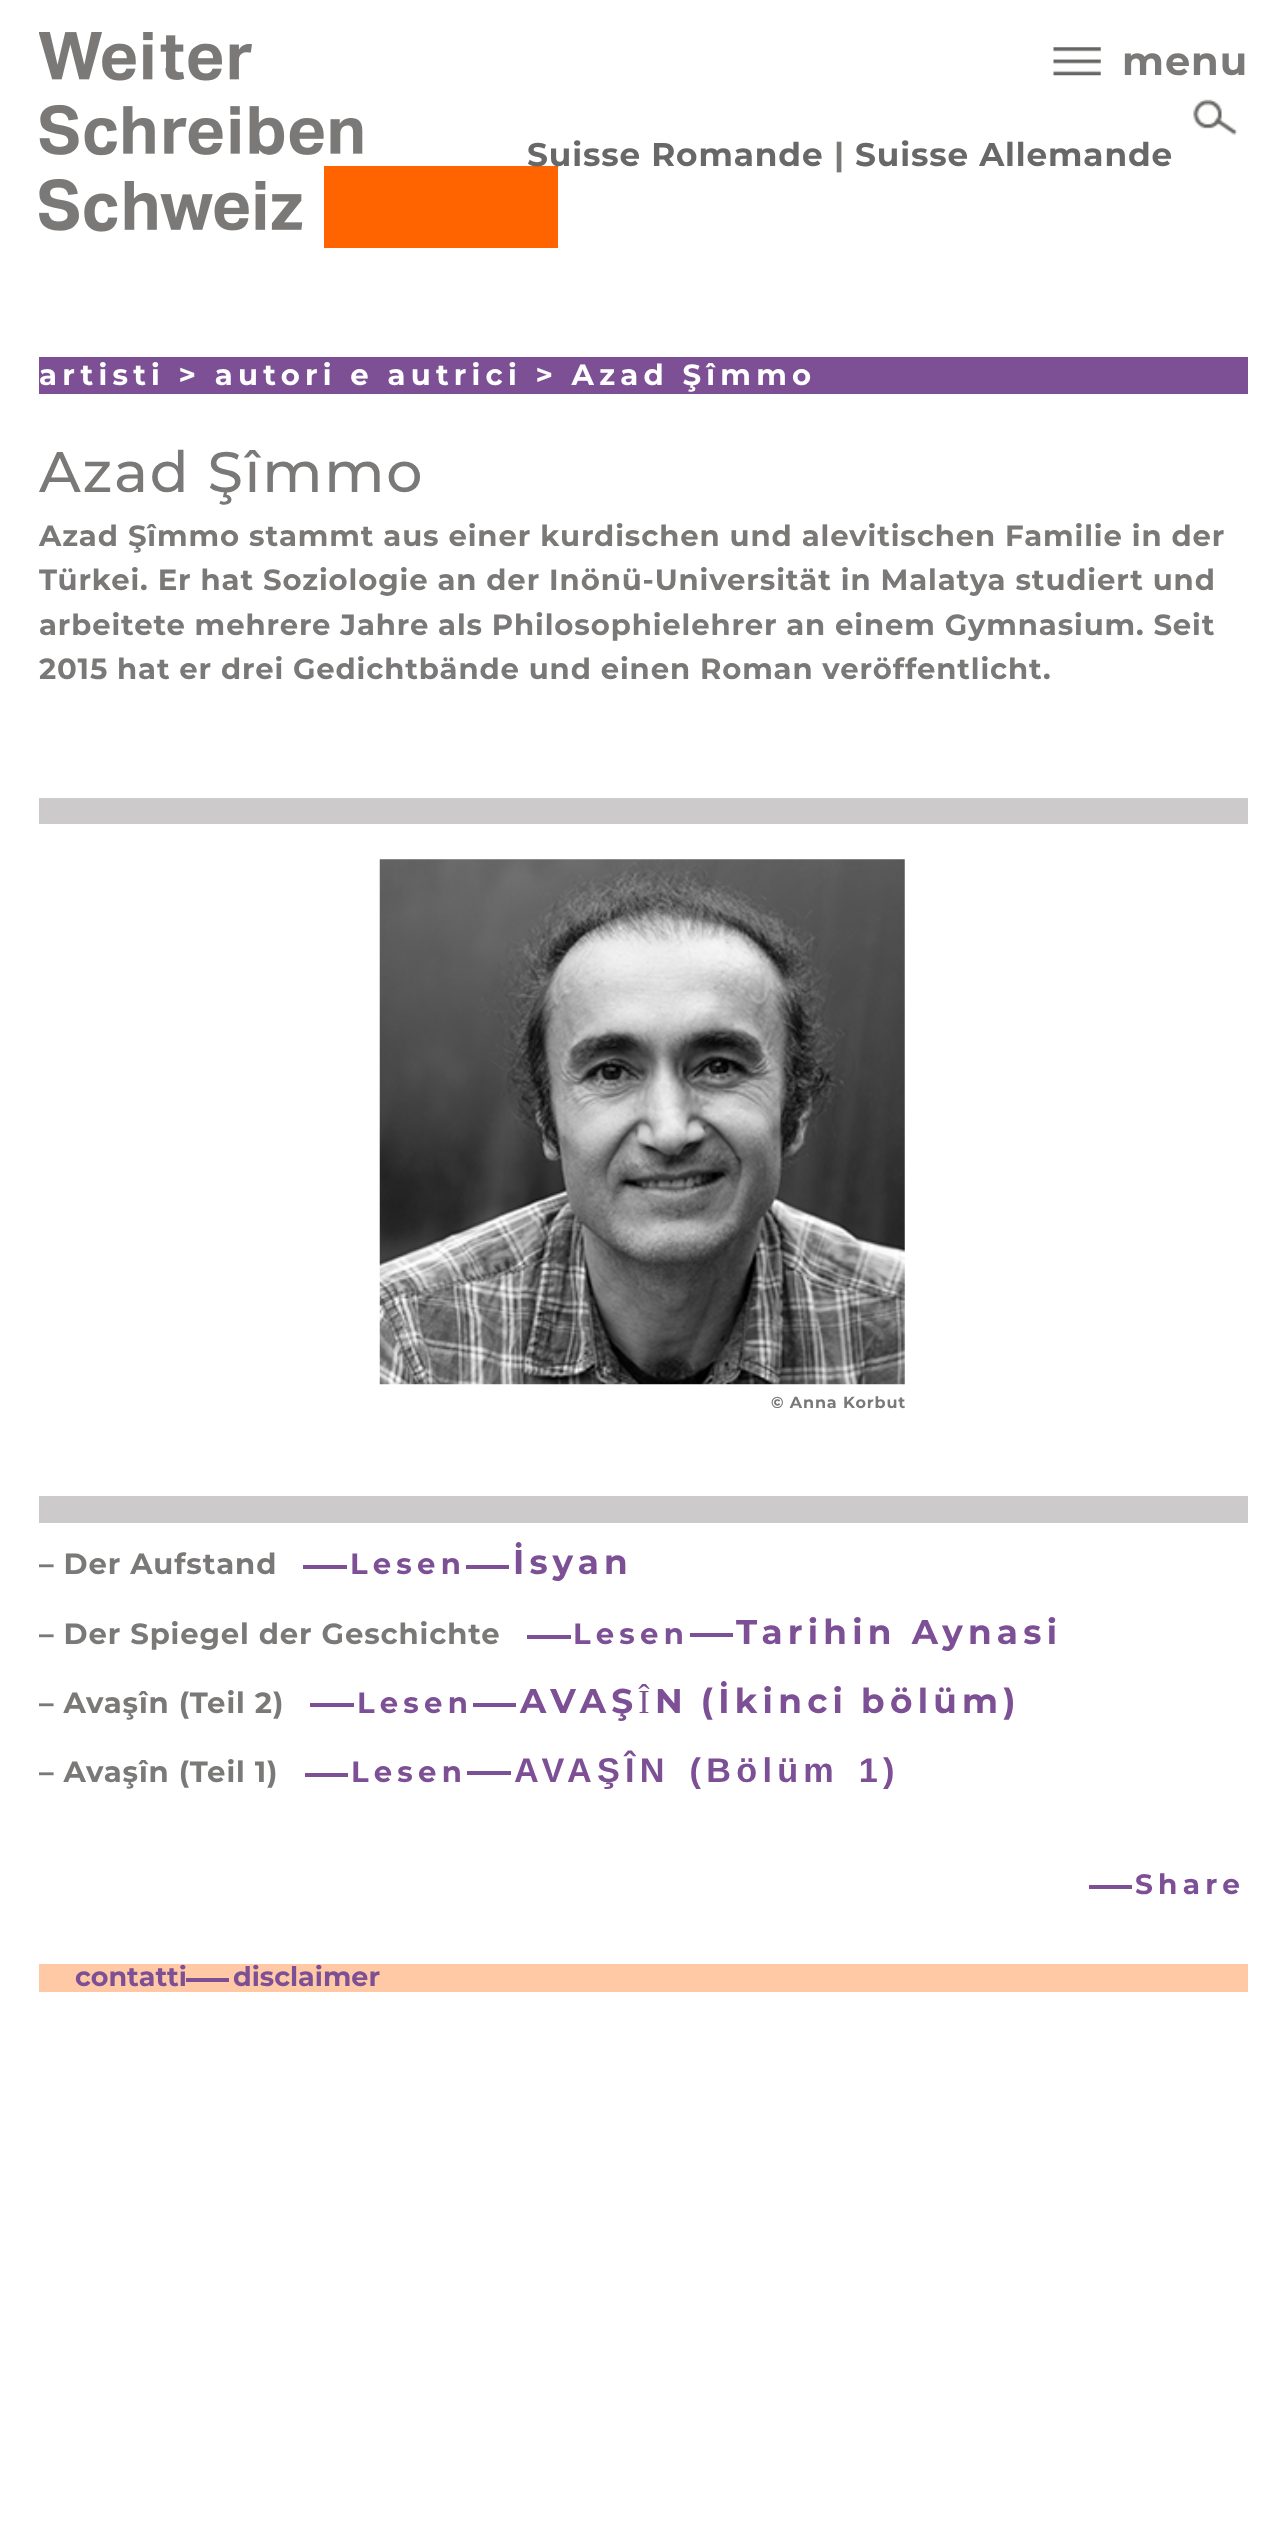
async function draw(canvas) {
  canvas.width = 1286
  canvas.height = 2548
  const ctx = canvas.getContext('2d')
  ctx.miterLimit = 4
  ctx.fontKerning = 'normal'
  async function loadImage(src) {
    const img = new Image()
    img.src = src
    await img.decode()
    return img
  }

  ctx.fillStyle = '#fff'
  ctx.fillRect(0, 0, 1286, 2548)
  ctx.drawImage(await loadImage('image0.png'), 39, 32, 519, 216)
  ctx.drawImage(await loadImage('image1.png'), 1053, 47, 48, 29)
  ctx.letterSpacing = '0.88px'
  ctx.font = '100 40px Montserrat'
  ctx.fillStyle = '#7a7978'
  ctx.fillText('menu', 1122, 75)
  ctx.drawImage(await loadImage('image2.png'), 1193, 99, 45, 36)
  ctx.font = '100 32.75px Montserrat'
  ctx.fillStyle = '#686868'
  ctx.fillText('Suisse Romande', 527, 166)
  ctx.fillStyle = '#7a7978'
  ctx.fillText('|', 834, 166)
  ctx.fillStyle = '#686868'
  ctx.fillText('Suisse Allemande', 855, 166)
  ctx.fillStyle = '#7d5096'
  ctx.fillRect(39, 357, 1209, 37)
  ctx.letterSpacing = '5.25px'
  ctx.font = '100 29.15px Montserrat'
  ctx.fillStyle = '#fff'
  ctx.fillText('artisti > autori e autrici > Azad Şîmmo', 39, 385)
  ctx.letterSpacing = '1.75px'
  ctx.font = '500 57px Montserrat'
  ctx.fillStyle = '#7a7978'
  ctx.fillText('Azad Şîmmo', 39, 492)
  ctx.letterSpacing = '0.88px'
  ctx.wordSpacing = '-0.1px'
  ctx.font = '100 29.15px Montserrat'
  ctx.fillText('Azad Şîmmo stammt aus einer kurdischen und alevitischen Familie in der', 39, 546)
  ctx.fillText('Türkei. Er hat Soziologie an der Inönü-Universität in Malatya studiert und', 39, 590)
  ctx.wordSpacing = '-0.25px'
  ctx.fillText('arbeitete mehrere Jahre als Philosophielehrer an einem Gymnasium. Seit', 39, 635)
  ctx.fillText('2015 hat er drei Gedichtbände und einen Roman veröffentlicht.', 39, 679)
  ctx.fillStyle = '#cccaca'
  ctx.fillRect(39, 798, 1209, 26)
  ctx.drawImage(await loadImage('image3.png'), 379, 859, 526, 526)
  ctx.wordSpacing = '0px'
  ctx.font = '100 16px Montserrat'
  ctx.fillStyle = '#7a7978'
  ctx.fillText('© Anna Korbut', 771, 1408)
  ctx.fillStyle = '#cccaca'
  ctx.fillRect(39, 1496, 1209, 27)
  ctx.font = '100 29.15px Montserrat'
  ctx.fillStyle = '#7a7978'
  ctx.fillText('– Der Aufstand', 39, 1574)
  ctx.fillStyle = '#7d5096'
  ctx.fillRect(303, 1565, 44, 4)
  ctx.letterSpacing = '5.25px'
  ctx.fillText('Lesen', 350, 1574)
  ctx.fillRect(466, 1565, 43, 4)
  ctx.font = '100 34.25px Montserrat'
  ctx.fillText('İsyan', 513, 1574)
  ctx.letterSpacing = '0.88px'
  ctx.wordSpacing = '-0.1px'
  ctx.font = '100 29.15px Montserrat'
  ctx.fillStyle = '#7a7978'
  ctx.fillText('– Der Spiegel der Geschichte', 39, 1644)
  ctx.fillStyle = '#7d5096'
  ctx.fillRect(527, 1635, 44, 4)
  ctx.letterSpacing = '5.25px'
  ctx.wordSpacing = '0px'
  ctx.fillText('Lesen', 573, 1644)
  ctx.fillRect(690, 1633, 43, 4)
  ctx.font = '100 34.25px Montserrat'
  ctx.fillText('Tarihin Aynasi', 736, 1644)
  ctx.letterSpacing = '0.88px'
  ctx.font = '100 29.15px Montserrat'
  ctx.fillStyle = '#7a7978'
  ctx.fillText('– Avaşîn (Teil 2)', 39, 1713)
  ctx.fillStyle = '#7d5096'
  ctx.fillRect(310, 1703, 44, 4)
  ctx.letterSpacing = '5.25px'
  ctx.fillText('Lesen', 357, 1713)
  ctx.fillRect(473, 1703, 43, 4)
  ctx.wordSpacing = '-2px'
  ctx.font = '100 34.25px Montserrat'
  ctx.fillText('AVAŞÎN (İkinci bölüm)', 520, 1713)
  ctx.letterSpacing = '0.88px'
  ctx.wordSpacing = '0px'
  ctx.font = '100 29.15px Montserrat'
  ctx.fillStyle = '#7a7978'
  ctx.fillText('– Avaşîn (Teil 1)', 39, 1782)
  ctx.fillStyle = '#7d5096'
  ctx.fillRect(305, 1773, 43, 4)
  ctx.letterSpacing = '5.25px'
  ctx.fillText('Lesen', 351, 1782)
  ctx.fillRect(467, 1771, 44, 4)
  ctx.wordSpacing = '5px'
  ctx.font = 'bold 34.25px Liberation Sans'
  ctx.fillText('AVAŞÎN (Bölüm 1)', 514, 1782)
  ctx.fillRect(1089, 1885, 43, 4)
  ctx.wordSpacing = '0px'
  ctx.font = '100 28px Montserrat'
  ctx.fillText('Share', 1135, 1894)
  ctx.fillStyle = '#ffc9a6'
  ctx.fillRect(39, 1964, 1209, 28)
  ctx.letterSpacing = '0px'
  ctx.font = '100 27px Montserrat'
  ctx.fillStyle = '#7d5096'
  ctx.fillText('contatti', 75, 1986)
  ctx.fillRect(186, 1978, 43, 4)
  ctx.fillText('disclaimer', 233, 1986)
}

draw(document.querySelector('canvas'))
